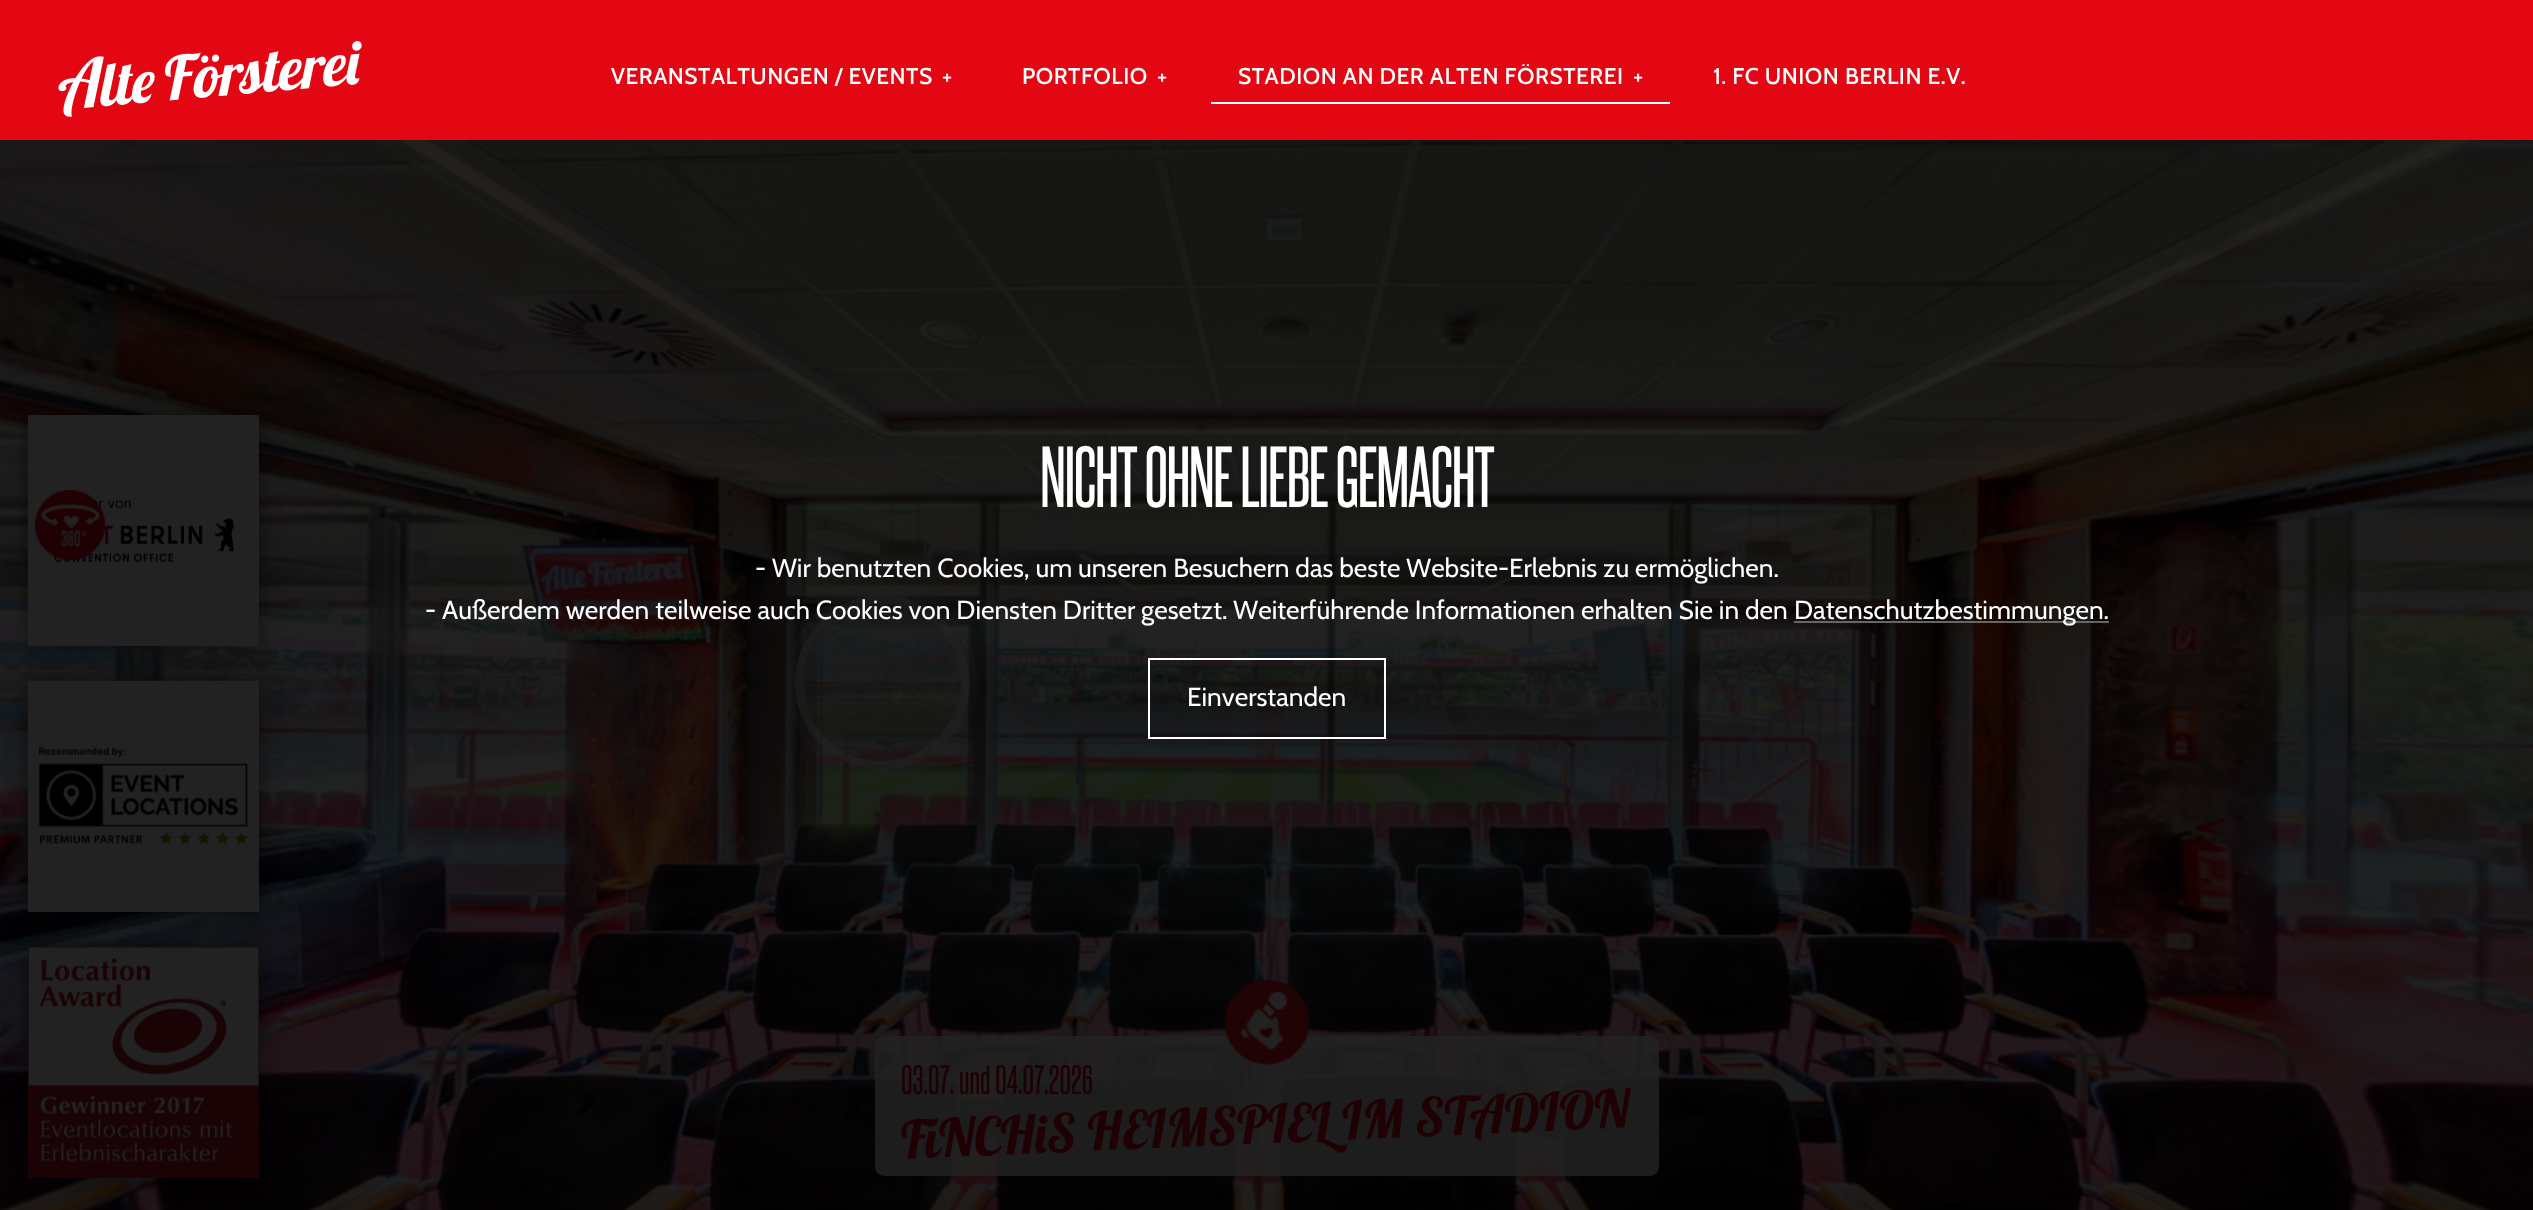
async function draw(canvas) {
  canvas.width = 2533
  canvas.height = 1210
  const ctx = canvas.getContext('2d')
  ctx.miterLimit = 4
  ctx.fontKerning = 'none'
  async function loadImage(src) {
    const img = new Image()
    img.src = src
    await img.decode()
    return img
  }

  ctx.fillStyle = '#fff'
  ctx.fillRect(0, 0, 2533, 1210)
  ctx.fillStyle = '#e30613'
  ctx.fillRect(0, 0, 2533, 140)
  ctx.drawImage(await loadImage('image0.png'), 58, 41, 304, 76)
  ctx.letterSpacing = '0.5px'
  ctx.font = '500 22.75px Cabin'
  ctx.fillStyle = '#fff'
  ctx.fillText('VERANSTALTUNGEN / EVENTS', 611, 84)
  ctx.fillText('+', 942, 84)
  ctx.fillText('PORTFOLIO', 1022, 84)
  ctx.fillText('+', 1157, 84)
  ctx.fillText('STADION AN DER ALTEN FÖRSTEREI', 1238, 84)
  ctx.fillText('+', 1633, 84)
  ctx.fillRect(1211, 102, 459, 2)
  ctx.fillText('1. FC UNION BERLIN E.V.', 1713, 84)
  ctx.drawImage(await loadImage('image1.png'), 0, 140, 2533, 1070)
  ctx.fillStyle = '#05220059'
  ctx.fillRect(898, 699, 10, 10)
  ctx.fillStyle = '#2222222b'
  ctx.beginPath()
  ctx.roundRect(786, 586, 192, 193, 96)
  ctx.fill()
  ctx.fillStyle = '#22222259'
  ctx.beginPath()
  ctx.arc(882.5, 682.5, 87.5, 0, 2 * Math.PI)
  ctx.fill()
  ctx.beginPath()
  ctx.arc(882.5, 682.5, 83, 0, 2 * Math.PI)
  ctx.strokeStyle = '#22222259'
  ctx.lineWidth = 9
  ctx.stroke()
  ctx.drawImage(await loadImage('image2.png'), 803, 603, 157, 158)
  ctx.fillStyle = '#00000080'
  ctx.filter = 'blur(10.5px)'
  ctx.beginPath()
  ctx.roundRect(28, 415, 231, 231, 2)
  ctx.fill()
  ctx.filter = 'none'
  ctx.fillStyle = '#222'
  ctx.beginPath()
  ctx.roundRect(28, 415, 231, 231, 2)
  ctx.fill()
  ctx.drawImage(await loadImage('image3.png'), 52, 495, 183, 68)
  ctx.drawImage(await loadImage('image4.png'), 35, 490, 70, 70)
  ctx.fillStyle = '#00000080'
  ctx.filter = 'blur(10.5px)'
  ctx.beginPath()
  ctx.rect(28, 681, 231, 231)
  ctx.fill()
  ctx.filter = 'none'
  ctx.drawImage(await loadImage('image5.png'), 28, 680, 231, 231)
  ctx.fillStyle = '#222'
  ctx.fillRect(28, 911, 231, 1)
  ctx.fillStyle = '#00000080'
  ctx.filter = 'blur(10.5px)'
  ctx.beginPath()
  ctx.rect(28, 947, 231, 231)
  ctx.fill()
  ctx.filter = 'none'
  ctx.drawImage(await loadImage('image6.png'), 28, 946, 231, 232)
  ctx.letterSpacing = '-1.75px'
  ctx.font = '73.5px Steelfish'
  ctx.fillStyle = '#fff'
  ctx.fillText('NICHT OHNE LIEBE GEMACHT', 1040, 507)
  ctx.letterSpacing = '0px'
  ctx.font = '26.25px Cabin'
  ctx.fillText('- Wir benutzten Cookies, um unseren Besuchern das beste Website-Erlebnis zu ermöglichen.', 755, 577)
  ctx.fillText('- Außerdem werden teilweise auch Cookies von Diensten Dritter gesetzt. Weiterführende Informationen', 425, 619)
  ctx.fillText('erhalten Sie in den', 1581, 619)
  ctx.fillStyle = '#666'
  ctx.fillRect(1794, 621, 315, 2)
  ctx.fillStyle = '#fff'
  ctx.fillText('Datenschutzbestimmungen.', 1794, 619)
  ctx.strokeStyle = '#fff'
  ctx.lineWidth = 2
  ctx.strokeRect(1149, 659, 236, 79)
  ctx.fillText('Einverstanden', 1187, 706)
  ctx.fillStyle = '#222222d9'
  ctx.beginPath()
  ctx.roundRect(875, 1036, 784, 140, 9)
  ctx.fill()
  ctx.drawImage(await loadImage('image7.png'), 1223, 979, 88, 86)
  ctx.font = '35px Steelfish'
  ctx.fillStyle = '#1f0103'
  ctx.fillText('03.07. und 04.07.2026', 901, 1094)
  ctx.font = '52.5px Lobster'
  ctx.save()
  ctx.translate(902, 1159)
  ctx.rotate(-2.5 * Math.PI / 180)
  ctx.fillText('FiNCHiS HEIMSPIEL IM STADION', 0, 0)
  ctx.restore()
}

draw(document.querySelector('canvas'))
